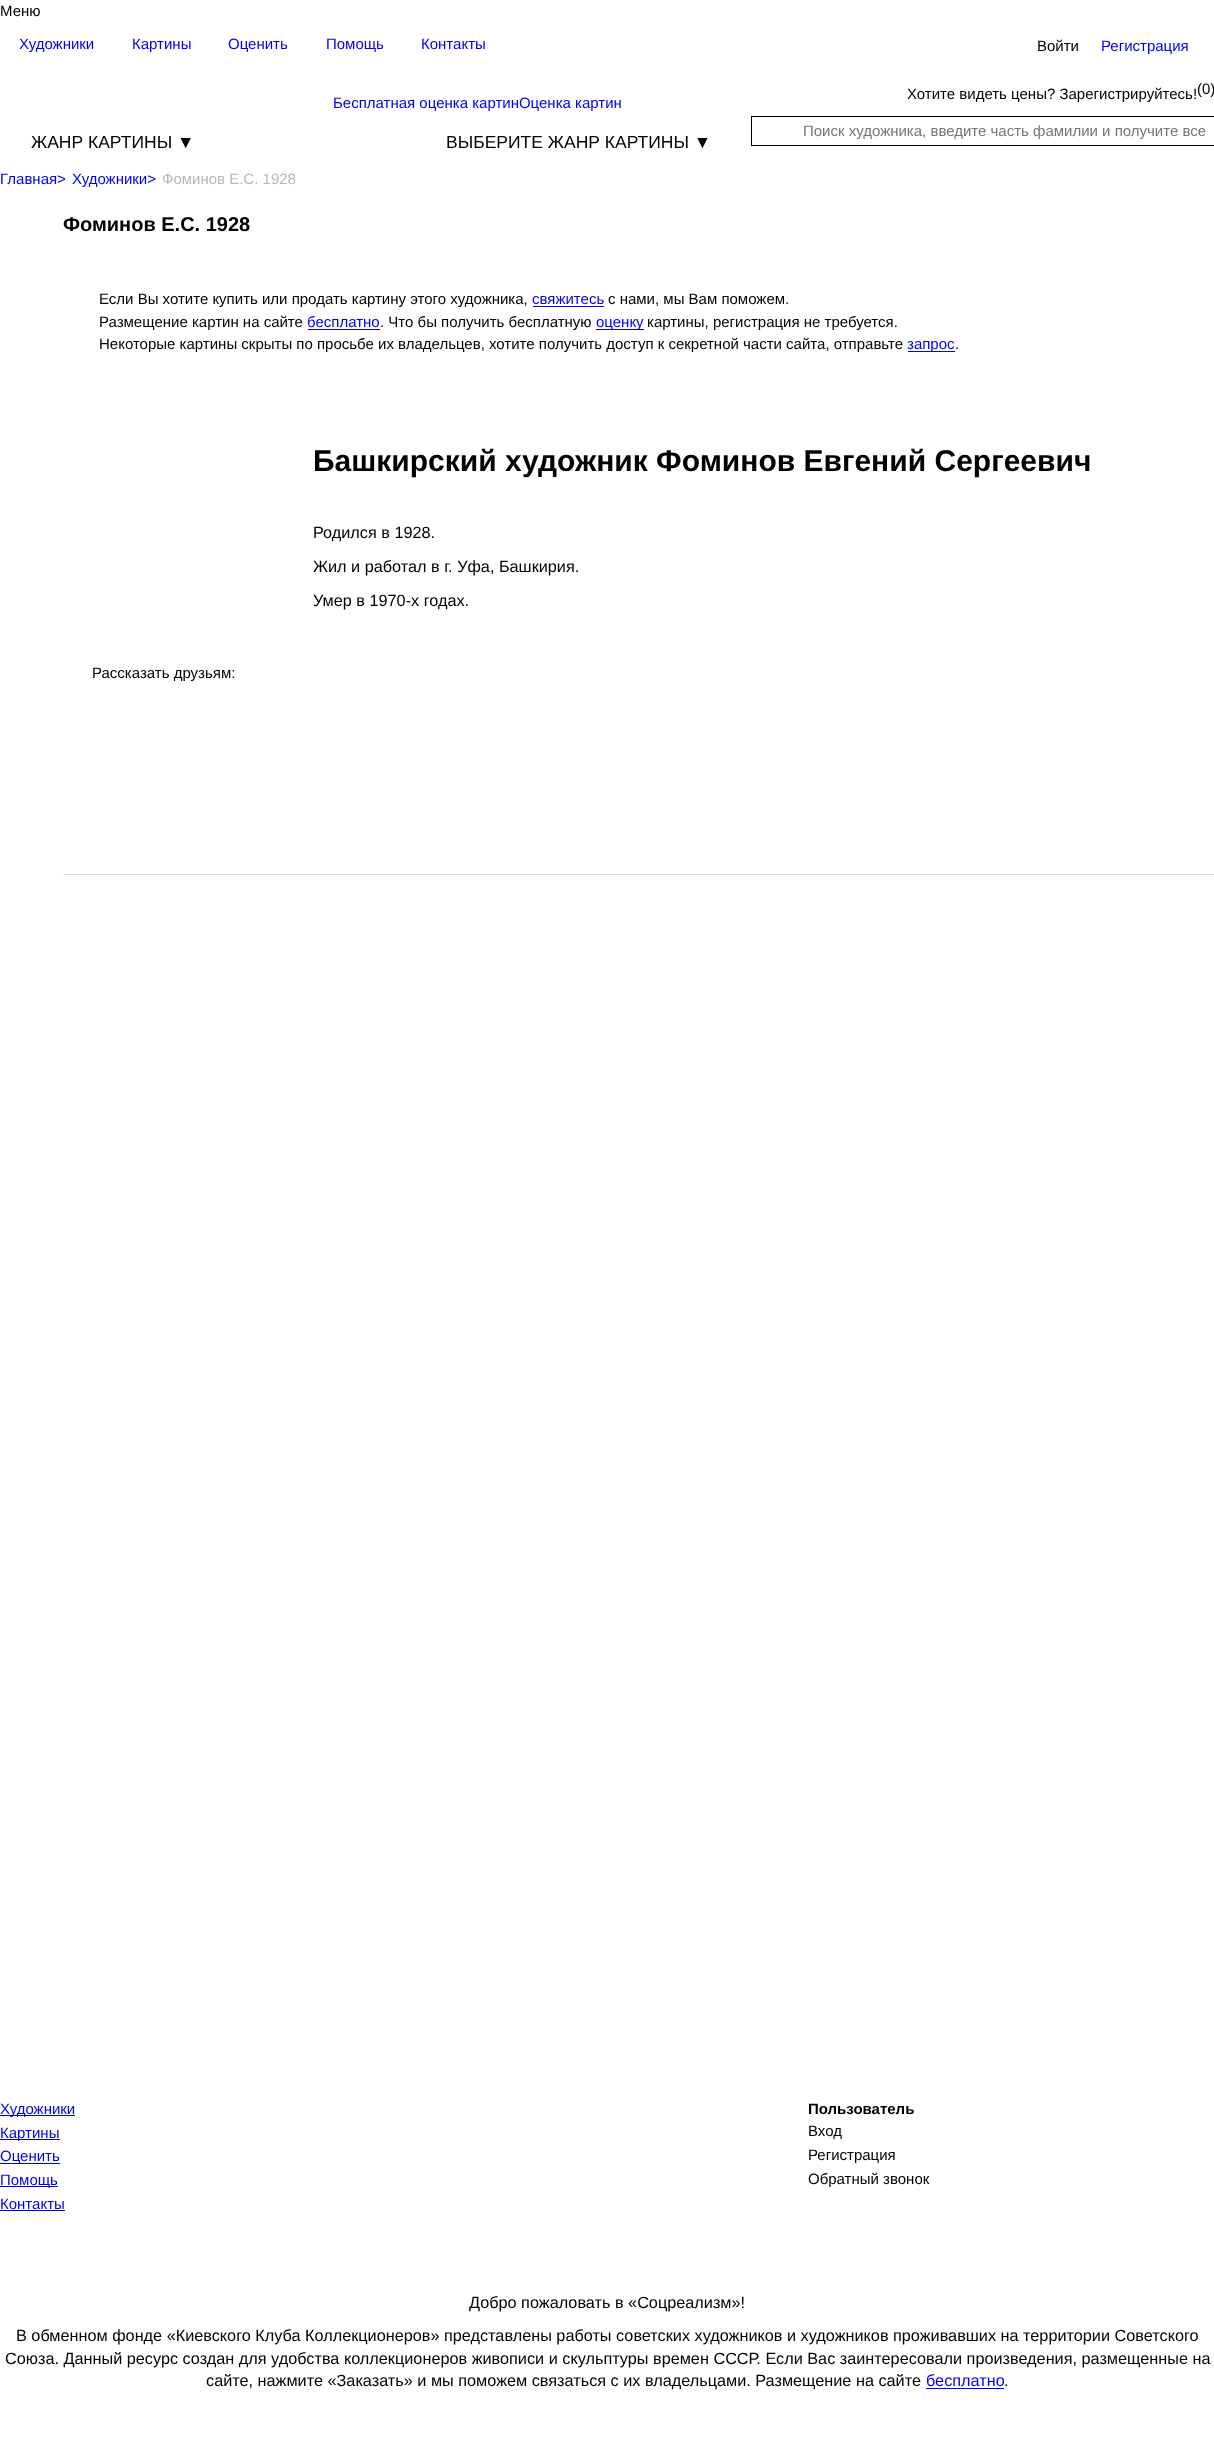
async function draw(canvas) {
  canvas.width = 1214
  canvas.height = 2454
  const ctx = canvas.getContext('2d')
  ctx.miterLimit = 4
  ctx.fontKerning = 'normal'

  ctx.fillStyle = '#fff'
  ctx.fillRect(0, 0, 1214, 2454)
  ctx.font = '15px Liberation Sans'
  ctx.fillStyle = '#000'
  ctx.fillText('Меню', 0, 16)
  ctx.fillStyle = '#00e'
  ctx.fillText('Художники', 19, 49)
  ctx.fillText('Картины', 132, 49)
  ctx.fillText('Оценить', 228, 49)
  ctx.fillText('Помощь', 326, 49)
  ctx.fillText('Контакты', 421, 49)
  ctx.fillStyle = '#000'
  ctx.fillText('Войти', 1037, 51)
  ctx.fillStyle = '#00e'
  ctx.fillText('Регистрация', 1101, 51)
  ctx.fillStyle = '#000'
  ctx.fillText('Хотите видеть цены? Зарегистрируйтесь!', 907, 99)
  ctx.fillText('(0)', 1197, 94)
  ctx.fillStyle = '#00e'
  ctx.fillText('Бесплатная оценка картинОценка картин', 333, 108)
  ctx.strokeStyle = '#000'
  ctx.strokeRect(751.5, 116.5, 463, 29)
  ctx.fillStyle = '#757575'
  ctx.fillText('Поиск художника, введите часть фамилии и получите все', 803, 136)
  ctx.font = '17.5px Liberation Sans'
  ctx.fillStyle = '#000'
  ctx.fillText('ЖАНР КАРТИНЫ ▼', 31, 148)
  ctx.fillText('ВЫБЕРИТЕ ЖАНР КАРТИНЫ ▼', 446, 148)
  ctx.font = '15px Liberation Sans'
  ctx.fillStyle = '#00e'
  ctx.fillText('Главная>', 0, 184)
  ctx.fillText('Художники>', 72, 184)
  ctx.fillStyle = '#b7b7b7'
  ctx.fillText('Фоминов Е.С. 1928', 162, 184)
  ctx.font = 'bold 20px Liberation Sans'
  ctx.fillStyle = '#000'
  ctx.fillText('Фоминов Е.С. 1928', 63, 231)
  ctx.font = '15px Liberation Sans'
  ctx.fillText('Если Вы хотите купить или продать картину этого художника,', 99, 304)
  ctx.fillStyle = '#00e'
  ctx.fillText('свяжитесь', 532, 304)
  ctx.fillRect(533, 306, 71, 1)
  ctx.fillStyle = '#000'
  ctx.fillText('с нами, мы Вам поможем.', 608, 304)
  ctx.fillText('Размещение картин на сайте', 99, 327)
  ctx.fillStyle = '#00e'
  ctx.fillText('бесплатно', 307, 327)
  ctx.fillRect(308, 329, 72, 1)
  ctx.fillStyle = '#000'
  ctx.fillText('. Что бы получить бесплатную', 380, 327)
  ctx.fillStyle = '#00e'
  ctx.fillRect(596, 329, 48, 1)
  ctx.fillText('оценку', 596, 327)
  ctx.fillStyle = '#000'
  ctx.fillText('картины, регистрация не требуется.', 647, 327)
  ctx.fillText('Некоторые картины скрыты по просьбе их владельцев, хотите получить доступ к секретной части сайта, отправьте', 99, 349)
  ctx.fillStyle = '#00e'
  ctx.fillRect(908, 351, 47, 1)
  ctx.fillText('запрос', 907, 349)
  ctx.fillStyle = '#000'
  ctx.fillText('.', 955, 349)
  ctx.fillStyle = '#dbdbdb'
  ctx.fillRect(63, 874, 1151, 1)
  ctx.font = 'bold 30px Liberation Sans'
  ctx.fillStyle = '#000'
  ctx.fillText('Башкирский художник Фоминов Евгений Сергеевич', 313, 471)
  ctx.font = '16.25px Liberation Sans'
  ctx.fillText('Родился в 1928.', 313, 538)
  ctx.fillText('Жил и работал в г. Уфа, Башкирия.', 313, 572)
  ctx.fillText('Умер в 1970-х годах.', 313, 606)
  ctx.font = '15px Liberation Sans'
  ctx.fillText('Рассказать друзьям:', 92, 678)
  ctx.fillStyle = '#00e'
  ctx.fillRect(0, 2115, 75, 1)
  ctx.fillText('Художники', 0, 2114)
  ctx.fillRect(0, 2139, 60, 1)
  ctx.fillText('Картины', 0, 2138)
  ctx.fillRect(0, 2163, 60, 1)
  ctx.fillText('Оценить', 0, 2161)
  ctx.fillRect(0, 2186, 58, 1)
  ctx.fillText('Помощь', 0, 2185)
  ctx.fillText('Контакты', 0, 2209)
  ctx.fillRect(0, 2210, 65, 1)
  ctx.font = 'bold 15px Liberation Sans'
  ctx.fillStyle = '#000'
  ctx.fillText('Пользователь', 808, 2114)
  ctx.font = '15px Liberation Sans'
  ctx.fillText('Вход', 808, 2136)
  ctx.fillText('Регистрация', 808, 2160)
  ctx.fillText('Обратный звонок', 808, 2184)
  ctx.font = '16.25px Liberation Sans'
  ctx.fillText('Добро пожаловать в «Соцреализм»!', 469, 2308)
  ctx.fillText('В обменном фонде «Киевского Клуба Коллекционеров» представлены работы советских художников и художников проживавших на территории Советского', 16, 2341)
  ctx.fillText('Союза. Данный ресурс создан для удобства коллекционеров живописи и скульптуры времен СССР. Если Вас заинтересовали произведения, размещенные на', 5, 2364)
  ctx.fillText('сайте, нажмите «Заказать» и мы поможем связаться с их владельцами. Размещение на сайте', 206, 2386)
  ctx.fillStyle = '#00e'
  ctx.fillText('бесплатно', 926, 2386)
  ctx.fillRect(926, 2388, 78, 1)
  ctx.fillStyle = '#000'
  ctx.fillText('.', 1004, 2386)
}

draw(document.querySelector('canvas'))
